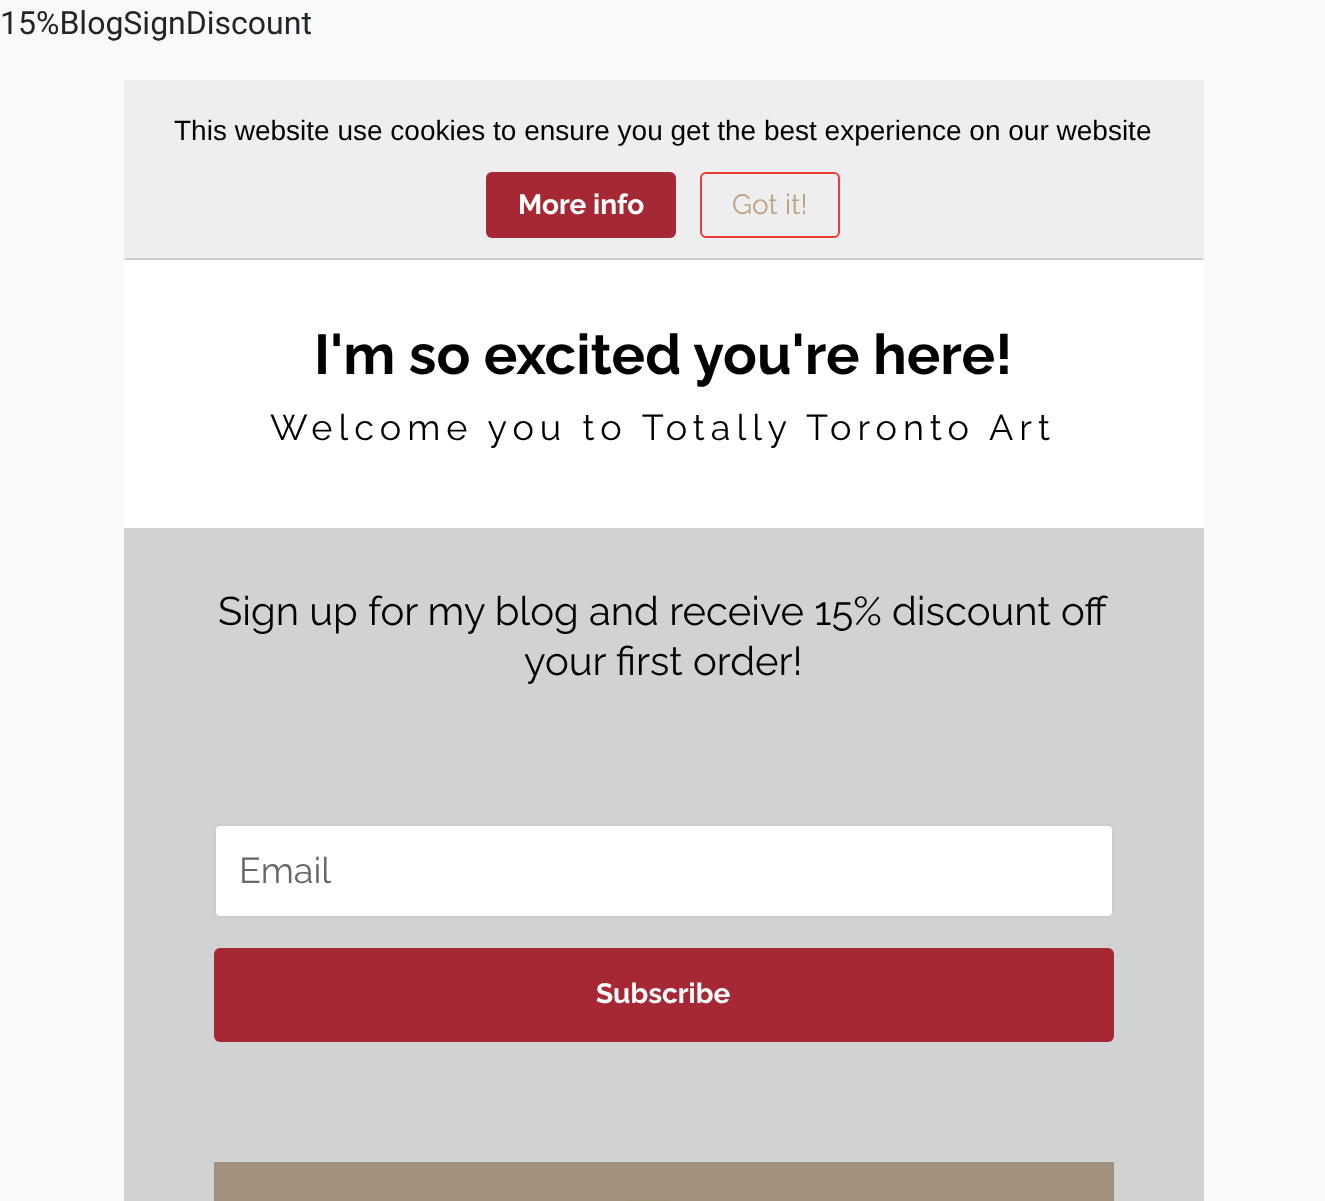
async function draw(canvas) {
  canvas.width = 1325
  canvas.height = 1201
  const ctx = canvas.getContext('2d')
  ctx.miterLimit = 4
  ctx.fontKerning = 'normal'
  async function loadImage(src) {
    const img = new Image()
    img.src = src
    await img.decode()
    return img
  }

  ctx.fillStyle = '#f9f9f9'
  ctx.fillRect(0, 0, 1325, 1201)
  ctx.font = '32px Roboto'
  ctx.fillStyle = '#212529'
  ctx.fillText('15%BlogSignDiscount', 0, 34)
  ctx.fillStyle = '#eee'
  ctx.fillRect(124, 80, 1080, 180)
  ctx.fillStyle = '#ccc'
  ctx.beginPath()
  ctx.moveTo(1204, 260)
  ctx.lineTo(124, 260)
  ctx.lineTo(126, 258)
  ctx.lineTo(1202, 258)
  ctx.closePath()
  ctx.fill()
  ctx.font = '28px Liberation Sans'
  ctx.fillStyle = '#000'
  ctx.fillText('This website use cookies to ensure you get the best experience on our website', 174, 140)
  ctx.fillStyle = '#a52834'
  ctx.beginPath()
  ctx.roundRect(486, 172, 190, 66, 6)
  ctx.fill()
  ctx.font = 'bold 28px Raleway'
  ctx.fillStyle = '#fff'
  ctx.fillText('More info', 518, 214)
  ctx.beginPath()
  ctx.roundRect(701, 173, 138, 64, 5)
  ctx.strokeStyle = '#ed3b3b'
  ctx.lineWidth = 2
  ctx.stroke()
  ctx.font = '28px Raleway'
  ctx.fillStyle = '#bfa380'
  ctx.fillText('Got it!', 732, 214)
  ctx.fillStyle = '#fff'
  ctx.fillRect(124, 260, 1080, 268)
  ctx.font = 'bold 56px Raleway'
  ctx.fillStyle = '#000'
  ctx.fillText('I\'m so excited you\'re here!', 314, 374)
  ctx.letterSpacing = '6px'
  ctx.font = '36px Raleway'
  ctx.fillText('Welcome you to Totally Toronto Art', 270, 440)
  ctx.fillStyle = '#d1d3d3'
  ctx.fillRect(124, 528, 1080, 673)
  ctx.letterSpacing = '0px'
  ctx.font = '40px Raleway'
  ctx.fillStyle = '#000'
  ctx.fillText('Sign up for my blog and receive 15% discount off', 218, 625)
  ctx.fillText('your first order!', 524, 675)
  ctx.fillStyle = '#fff'
  ctx.beginPath()
  ctx.roundRect(215, 825, 898, 92, 5)
  ctx.fill()
  ctx.strokeStyle = '#ccc'
  ctx.stroke()
  ctx.font = '36px Raleway'
  ctx.fillStyle = '#666'
  ctx.fillText('Email', 239, 883)
  ctx.fillStyle = '#a52834'
  ctx.beginPath()
  ctx.roundRect(214, 948, 900, 94, 6)
  ctx.fill()
  ctx.font = 'bold 28px Raleway'
  ctx.fillStyle = '#fff'
  ctx.fillText('Subscribe', 596, 1003)
  ctx.drawImage(await loadImage('image0.png'), 214, 1162, 900, 39)
}

draw(document.querySelector('canvas'))
